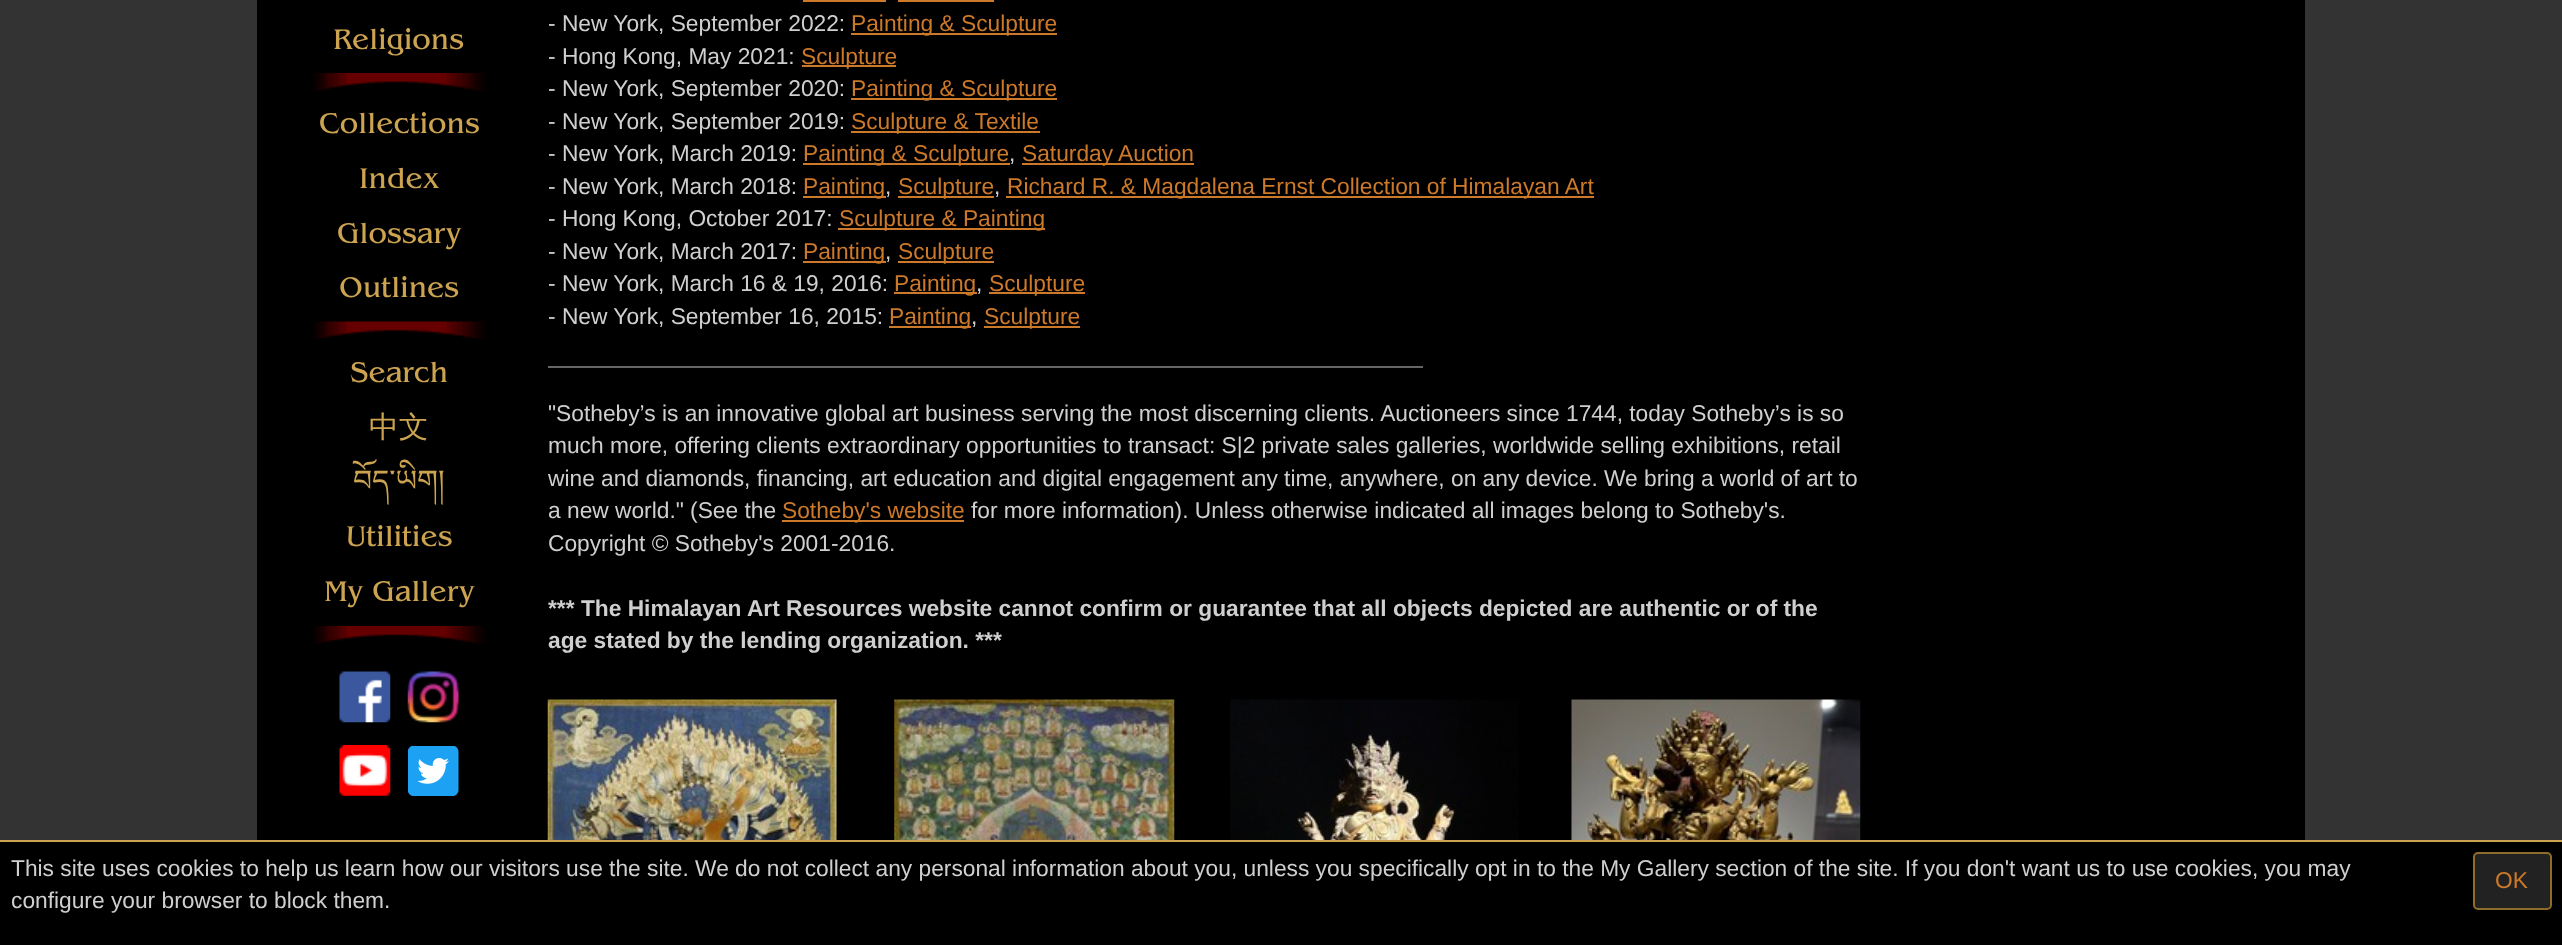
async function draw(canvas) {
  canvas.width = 2562
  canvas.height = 945
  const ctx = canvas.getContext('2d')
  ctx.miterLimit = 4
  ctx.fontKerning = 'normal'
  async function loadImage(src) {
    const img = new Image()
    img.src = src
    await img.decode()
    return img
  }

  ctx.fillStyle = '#333'
  ctx.fillRect(0, 0, 2562, 945)
  ctx.fillStyle = '#000'
  ctx.fillRect(257, 0, 2048, 840)
  ctx.font = '29.75px "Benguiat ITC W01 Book"'
  ctx.fillStyle = '#cca351'
  ctx.fillText('Religions', 333, 49)
  ctx.drawImage(await loadImage('image0.png'), 313, 73, 172, 18)
  ctx.fillText('Collections', 319, 133)
  ctx.fillText('Index', 359, 188)
  ctx.fillText('Glossary', 337, 243)
  ctx.fillText('Outlines', 339, 297)
  ctx.drawImage(await loadImage('image1.png'), 313, 321, 172, 18)
  ctx.fillText('Search', 350, 382)
  ctx.font = '500 29.75px WenQuanYi Zen Hei'
  ctx.fillText('中文', 369, 437)
  ctx.font = '29.75px Noto Serif Tibetan'
  ctx.fillText('བོད་ཡིག།', 353, 491)
  ctx.font = '29.75px "Benguiat ITC W01 Book"'
  ctx.fillText('Utilities', 346, 546)
  ctx.fillText('My Gallery', 324, 601)
  ctx.drawImage(await loadImage('image0.png'), 313, 626, 172, 18)
  ctx.drawImage(await loadImage('image2.png'), 339, 671, 52, 52)
  ctx.drawImage(await loadImage('image3.png'), 407, 671, 52, 52)
  ctx.drawImage(await loadImage('image4.png'), 339, 745, 52, 51)
  ctx.drawImage(await loadImage('image5.png'), 408, 746, 51, 50)
  ctx.fillStyle = '#cc792a'
  ctx.fillRect(803, 0, 83, 2)
  ctx.fillRect(898, 0, 96, 2)
  ctx.font = '22.75px Liberation Sans'
  ctx.fillStyle = '#cfcfcf'
  ctx.fillText('- New York, September 2022:', 548, 31)
  ctx.fillStyle = '#cc792a'
  ctx.fillRect(851, 33, 206, 2)
  ctx.fillText('Painting & Sculpture', 851, 31)
  ctx.fillStyle = '#cfcfcf'
  ctx.fillText('- Hong Kong, May 2021:', 548, 64)
  ctx.fillStyle = '#cc792a'
  ctx.fillRect(802, 65, 94, 2)
  ctx.fillText('Sculpture', 801, 64)
  ctx.fillStyle = '#cfcfcf'
  ctx.fillText('- New York, September 2020:', 548, 96)
  ctx.fillStyle = '#cc792a'
  ctx.fillRect(851, 98, 206, 2)
  ctx.fillText('Painting & Sculpture', 851, 96)
  ctx.fillStyle = '#cfcfcf'
  ctx.fillText('- New York, September 2019:', 548, 129)
  ctx.fillStyle = '#cc792a'
  ctx.fillRect(851, 131, 189, 2)
  ctx.fillText('Sculpture & Textile', 851, 129)
  ctx.fillStyle = '#cfcfcf'
  ctx.fillText('- New York, March 2019:', 548, 161)
  ctx.fillStyle = '#cc792a'
  ctx.fillRect(803, 163, 207, 2)
  ctx.fillText('Painting & Sculpture', 803, 161)
  ctx.fillStyle = '#cfcfcf'
  ctx.fillText(',', 1009, 161)
  ctx.fillStyle = '#cc792a'
  ctx.fillRect(1022, 163, 172, 2)
  ctx.fillText('Saturday Auction', 1022, 161)
  ctx.fillStyle = '#cfcfcf'
  ctx.fillText('- New York, March 2018:', 548, 194)
  ctx.fillStyle = '#cc792a'
  ctx.fillRect(803, 196, 83, 2)
  ctx.fillText('Painting', 803, 194)
  ctx.fillStyle = '#cfcfcf'
  ctx.fillText(',', 885, 194)
  ctx.fillStyle = '#cc792a'
  ctx.fillRect(898, 196, 96, 2)
  ctx.fillText('Sculpture', 898, 194)
  ctx.fillStyle = '#cfcfcf'
  ctx.fillText(',', 994, 194)
  ctx.fillStyle = '#cc792a'
  ctx.fillRect(1006, 196, 588, 2)
  ctx.fillText('Richard R. & Magdalena Ernst Collection of Himalayan Art', 1007, 194)
  ctx.fillStyle = '#cfcfcf'
  ctx.fillText('- Hong Kong, October 2017:', 548, 226)
  ctx.fillStyle = '#cc792a'
  ctx.fillRect(838, 228, 207, 2)
  ctx.fillText('Sculpture & Painting', 839, 226)
  ctx.fillStyle = '#cfcfcf'
  ctx.fillText('- New York, March 2017:', 548, 259)
  ctx.fillStyle = '#cc792a'
  ctx.fillRect(803, 261, 83, 2)
  ctx.fillText('Painting', 803, 259)
  ctx.fillStyle = '#cfcfcf'
  ctx.fillText(',', 885, 259)
  ctx.fillStyle = '#cc792a'
  ctx.fillRect(898, 261, 96, 2)
  ctx.fillText('Sculpture', 898, 259)
  ctx.fillStyle = '#cfcfcf'
  ctx.fillText('- New York, March 16 & 19, 2016:', 548, 291)
  ctx.fillStyle = '#cc792a'
  ctx.fillRect(894, 292, 83, 2)
  ctx.fillText('Painting', 894, 291)
  ctx.fillStyle = '#cfcfcf'
  ctx.fillText(',', 976, 291)
  ctx.fillStyle = '#cc792a'
  ctx.fillRect(989, 292, 96, 2)
  ctx.fillText('Sculpture', 989, 291)
  ctx.fillStyle = '#cfcfcf'
  ctx.fillText('- New York, September 16, 2015:', 548, 324)
  ctx.fillStyle = '#cc792a'
  ctx.fillRect(889, 326, 82, 2)
  ctx.fillText('Painting', 889, 324)
  ctx.fillStyle = '#cfcfcf'
  ctx.fillText(',', 971, 324)
  ctx.fillStyle = '#cc792a'
  ctx.fillRect(984, 326, 96, 2)
  ctx.fillText('Sculpture', 984, 324)
  ctx.fillStyle = '#666'
  ctx.fillRect(548, 366, 875, 2)
  ctx.fillStyle = '#cfcfcf'
  ctx.fillText('"Sotheby’s is an innovative global art business serving the most discerning clients. Auctioneers since 1744, today Sotheby’s is so', 548, 421)
  ctx.fillText('much more, offering clients extraordinary opportunities to transact: S|2 private sales galleries, worldwide selling exhibitions, retail', 548, 453)
  ctx.fillText('wine and diamonds, financing, art education and digital engagement any time, anywhere, on any device. We bring a world of art to', 548, 486)
  ctx.fillText('a new world." (See the', 548, 518)
  ctx.fillStyle = '#cc792a'
  ctx.fillRect(782, 520, 182, 2)
  ctx.fillText('Sotheby\'s website', 782, 518)
  ctx.fillStyle = '#cfcfcf'
  ctx.fillText('for more information). Unless otherwise indicated all images belong to Sotheby\'s.', 971, 518)
  ctx.fillText('Copyright © Sotheby\'s 2001-2016.', 548, 551)
  ctx.font = 'bold 22.75px Liberation Sans'
  ctx.fillText('*** The Himalayan Art Resources website cannot confirm or guarantee that all objects depicted are authentic or of the', 548, 616)
  ctx.fillText('age stated by the lending organization. ***', 548, 648)
  ctx.drawImage(await loadImage('image6.png'), 547, 699, 290, 141)
  ctx.drawImage(await loadImage('image7.png'), 894, 699, 281, 141)
  ctx.drawImage(await loadImage('image8.png'), 1230, 699, 289, 141)
  ctx.drawImage(await loadImage('image9.png'), 1571, 699, 290, 141)
  ctx.fillStyle = '#000'
  ctx.fillRect(0, 842, 2562, 103)
  ctx.fillStyle = '#cca351'
  ctx.fillRect(0, 840, 2562, 2)
  ctx.font = '22.75px Liberation Sans'
  ctx.fillStyle = '#cfcfcf'
  ctx.fillText('This site uses cookies to help us learn how our visitors use the site. We do not collect any personal information about you, unless you specifically opt in to the My Gallery section of the site. If you don\'t want us to use cookies, you may', 11, 876)
  ctx.fillText('configure your browser to block them.', 11, 908)
  ctx.fillStyle = '#222'
  ctx.beginPath()
  ctx.roundRect(2474, 853, 77, 56, 4)
  ctx.fill()
  ctx.strokeStyle = '#8e6c29'
  ctx.lineWidth = 2
  ctx.stroke()
  ctx.fillStyle = '#cc792a'
  ctx.fillText('OK', 2495, 888)
}

draw(document.querySelector('canvas'))
